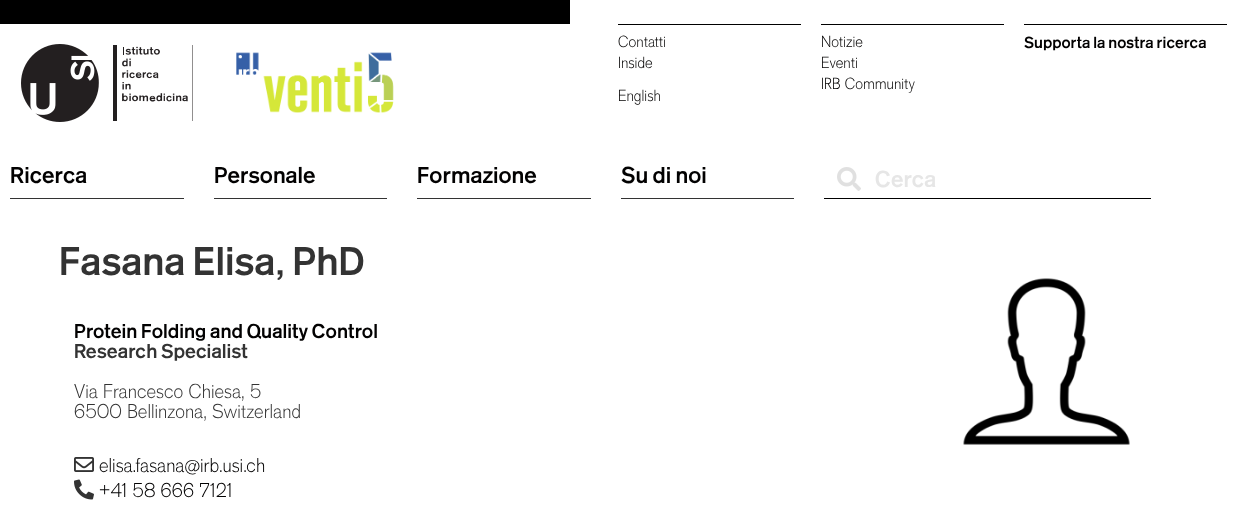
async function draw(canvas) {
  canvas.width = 1237
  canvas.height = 526
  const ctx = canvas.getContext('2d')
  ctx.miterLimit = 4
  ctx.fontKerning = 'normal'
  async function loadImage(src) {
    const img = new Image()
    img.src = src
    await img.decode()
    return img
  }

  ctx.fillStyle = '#fff'
  ctx.fillRect(0, 0, 1237, 526)
  ctx.fillStyle = '#000'
  ctx.fillRect(0, 0, 570, 24)
  ctx.drawImage(await loadImage('image0.png'), 21, 44, 172, 78)
  ctx.drawImage(await loadImage('image1.png'), 236, 52, 158, 61)
  ctx.fillRect(618, 24, 183, 1)
  ctx.font = '300 16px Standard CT'
  ctx.fillStyle = '#020101'
  ctx.fillText('Contatti', 618, 47)
  ctx.fillText('Inside', 618, 68)
  ctx.fillText('English', 618, 101)
  ctx.fillStyle = '#000'
  ctx.fillRect(821, 24, 183, 1)
  ctx.fillStyle = '#020101'
  ctx.fillText('Notizie', 821, 47)
  ctx.fillText('Eventi', 821, 68)
  ctx.fillText('IRB Community', 821, 89)
  ctx.fillStyle = '#000'
  ctx.fillRect(1024, 24, 203, 1)
  ctx.font = '500 16px Standard CT'
  ctx.fillStyle = '#020101'
  ctx.fillText('Supporta la nostra ricerca', 1024, 48)
  ctx.fillStyle = '#333'
  ctx.fillRect(10, 198, 174, 1)
  ctx.font = '500 23px Standard CT'
  ctx.fillStyle = '#020101'
  ctx.fillText('Ricerca', 10, 183)
  ctx.fillStyle = '#333'
  ctx.fillRect(214, 198, 173, 1)
  ctx.fillStyle = '#020101'
  ctx.fillText('Personale', 214, 183)
  ctx.fillStyle = '#333'
  ctx.fillRect(417, 198, 174, 1)
  ctx.fillStyle = '#020101'
  ctx.fillText('Formazione', 417, 183)
  ctx.fillStyle = '#333'
  ctx.fillRect(621, 198, 173, 1)
  ctx.fillStyle = '#020101'
  ctx.fillText('Su di noi', 621, 183)
  ctx.fillStyle = '#000'
  ctx.fillRect(824, 198, 327, 1)
  ctx.drawImage(await loadImage('image2.png'), 837, 167, 24, 24)
  ctx.fillStyle = '#e6e6e6'
  ctx.fillText('Cerca', 875, 187)
  ctx.font = '500 40px Standard CT'
  ctx.fillStyle = '#333'
  ctx.fillText('Fasana Elisa, PhD', 59, 275)
  ctx.font = '500 20px Standard CT'
  ctx.fillStyle = '#020101'
  ctx.fillText('Protein Folding and Quality Control', 74, 338)
  ctx.fillStyle = '#333'
  ctx.fillText('Research Specialist', 74, 358)
  ctx.font = '300 20px Standard CT'
  ctx.fillText('Via Francesco Chiesa, 5', 74, 398)
  ctx.fillText('6500 Bellinzona, Switzerland', 74, 418)
  ctx.drawImage(await loadImage('image3.png'), 74, 457, 20, 15)
  ctx.fillStyle = '#020101'
  ctx.fillText('elisa.fasana@irb.usi.ch', 99, 472)
  ctx.drawImage(await loadImage('image4.png'), 74, 479, 20, 21)
  ctx.fillText('+41 58 666 7121', 99, 497)
  ctx.drawImage(await loadImage('image5.png'), 963, 278, 167, 167)
}

draw(document.querySelector('canvas'))
